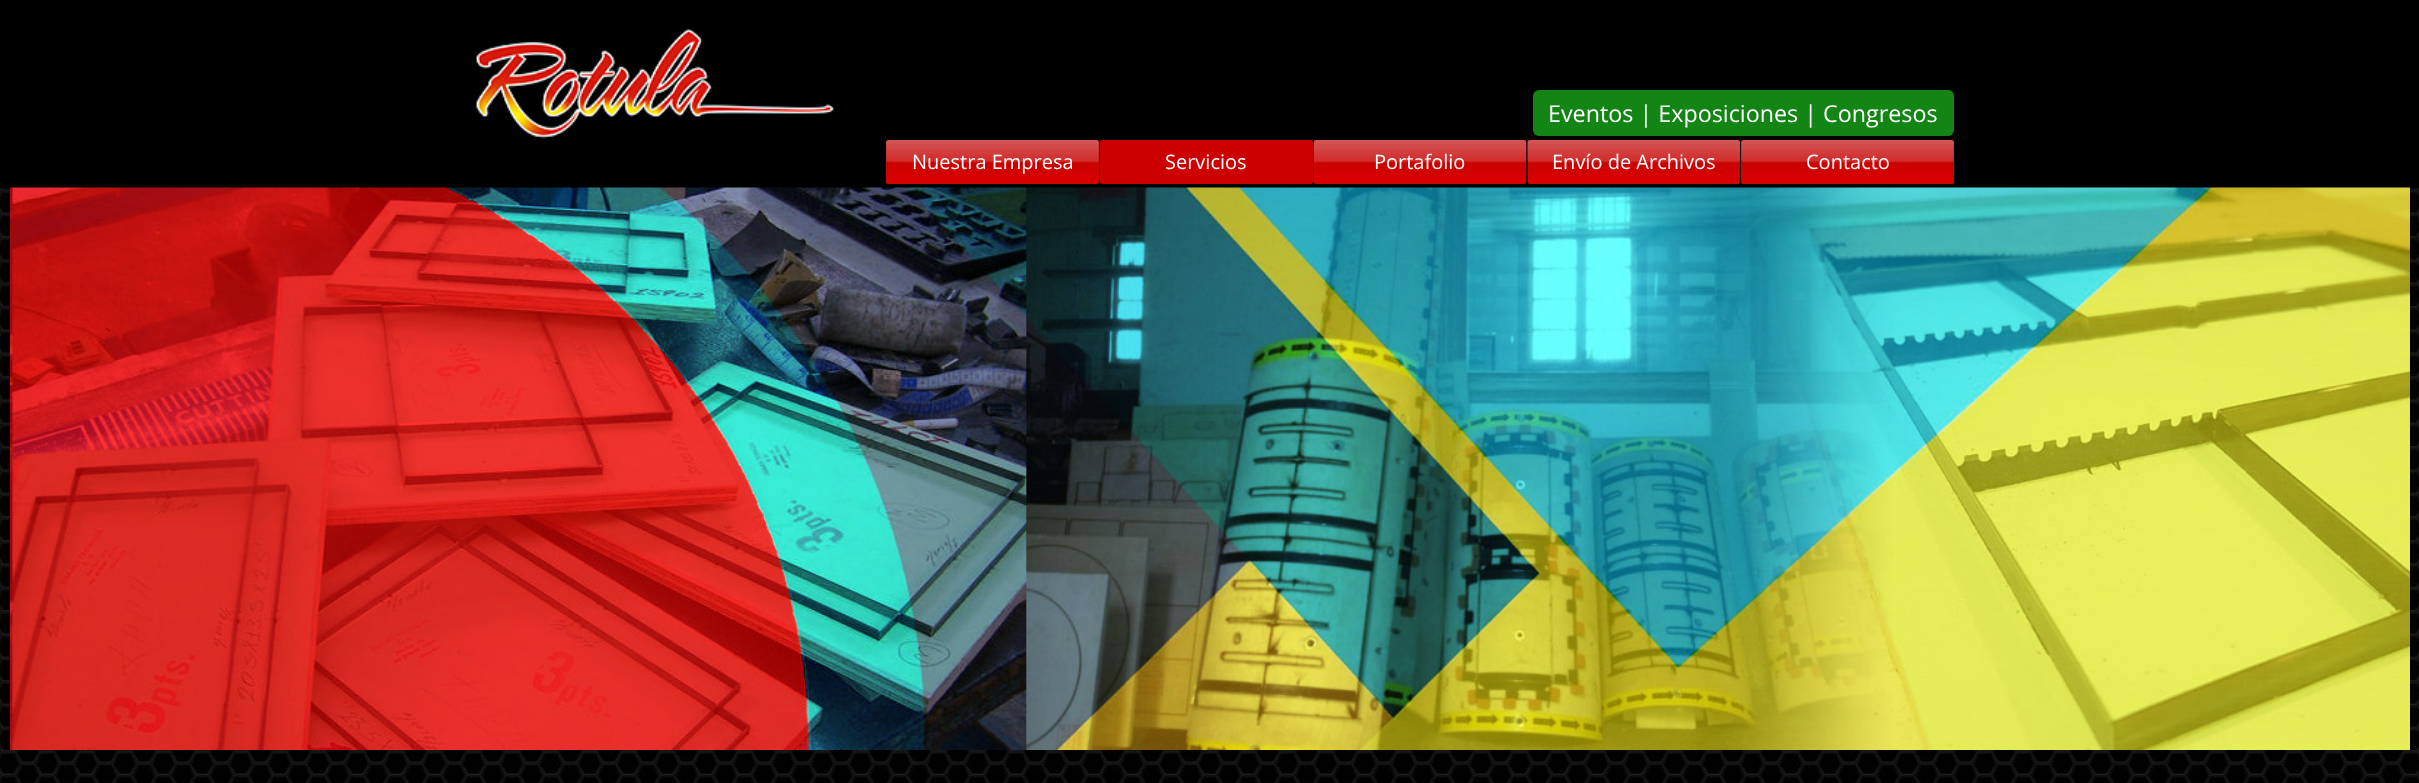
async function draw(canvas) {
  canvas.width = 2419
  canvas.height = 783
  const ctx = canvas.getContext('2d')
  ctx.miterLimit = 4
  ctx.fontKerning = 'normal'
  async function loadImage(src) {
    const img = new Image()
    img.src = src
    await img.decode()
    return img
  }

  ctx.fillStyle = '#fff'
  ctx.fillRect(0, 0, 2419, 783)
  ctx.drawImage(await loadImage('image0.png'), 0, 188, 2419, 595)
  ctx.fillStyle = '#000'
  ctx.fillRect(0, 0, 2419, 188)
  ctx.drawImage(await loadImage('image1.png'), 475, 28, 359, 111)
  ctx.fillStyle = '#128515'
  ctx.beginPath()
  ctx.roundRect(1533, 90, 421, 46, 6)
  ctx.fill()
  ctx.font = '23.3px Open Sans'
  ctx.fillStyle = '#fff'
  ctx.fillText('Eventos | Exposiciones | Congresos', 1548, 122)
  ctx.fillStyle = '#a61c00'
  ctx.beginPath()
  ctx.roundRect(886, 140, 213, 44, 2.5)
  ctx.fill()
  ctx.drawImage(await loadImage('image2.png'), 886, 140, 213, 44)
  ctx.font = '20px Open Sans'
  ctx.fillStyle = '#fff'
  ctx.fillText('Nuestra Empresa', 912, 169)
  ctx.fillStyle = '#c00'
  ctx.beginPath()
  ctx.roundRect(1100, 140, 213, 44, 2.5)
  ctx.fill()
  ctx.fillStyle = '#fff'
  ctx.fillText('Servicios', 1165, 169)
  ctx.fillStyle = '#a61c00'
  ctx.beginPath()
  ctx.roundRect(1314, 140, 212, 44, 2.5)
  ctx.fill()
  ctx.drawImage(await loadImage('image3.png'), 1313, 140, 214, 44)
  ctx.fillStyle = '#fff'
  ctx.fillText('Portafolio', 1374, 169)
  ctx.fillStyle = '#a61c00'
  ctx.beginPath()
  ctx.roundRect(1528, 140, 212, 44, 2.5)
  ctx.fill()
  ctx.drawImage(await loadImage('image4.png'), 1527, 140, 213, 44)
  ctx.fillStyle = '#fff'
  ctx.fillText('Envío de Archivos', 1552, 169)
  ctx.fillStyle = '#a61c00'
  ctx.beginPath()
  ctx.roundRect(1741, 140, 213, 44, 2.5)
  ctx.fill()
  ctx.drawImage(await loadImage('image2.png'), 1741, 140, 213, 44)
  ctx.fillStyle = '#fff'
  ctx.fillText('Contacto', 1806, 169)
  ctx.drawImage(await loadImage('image5.png'), 10, 187, 2400, 563)
}

draw(document.querySelector('canvas'))
